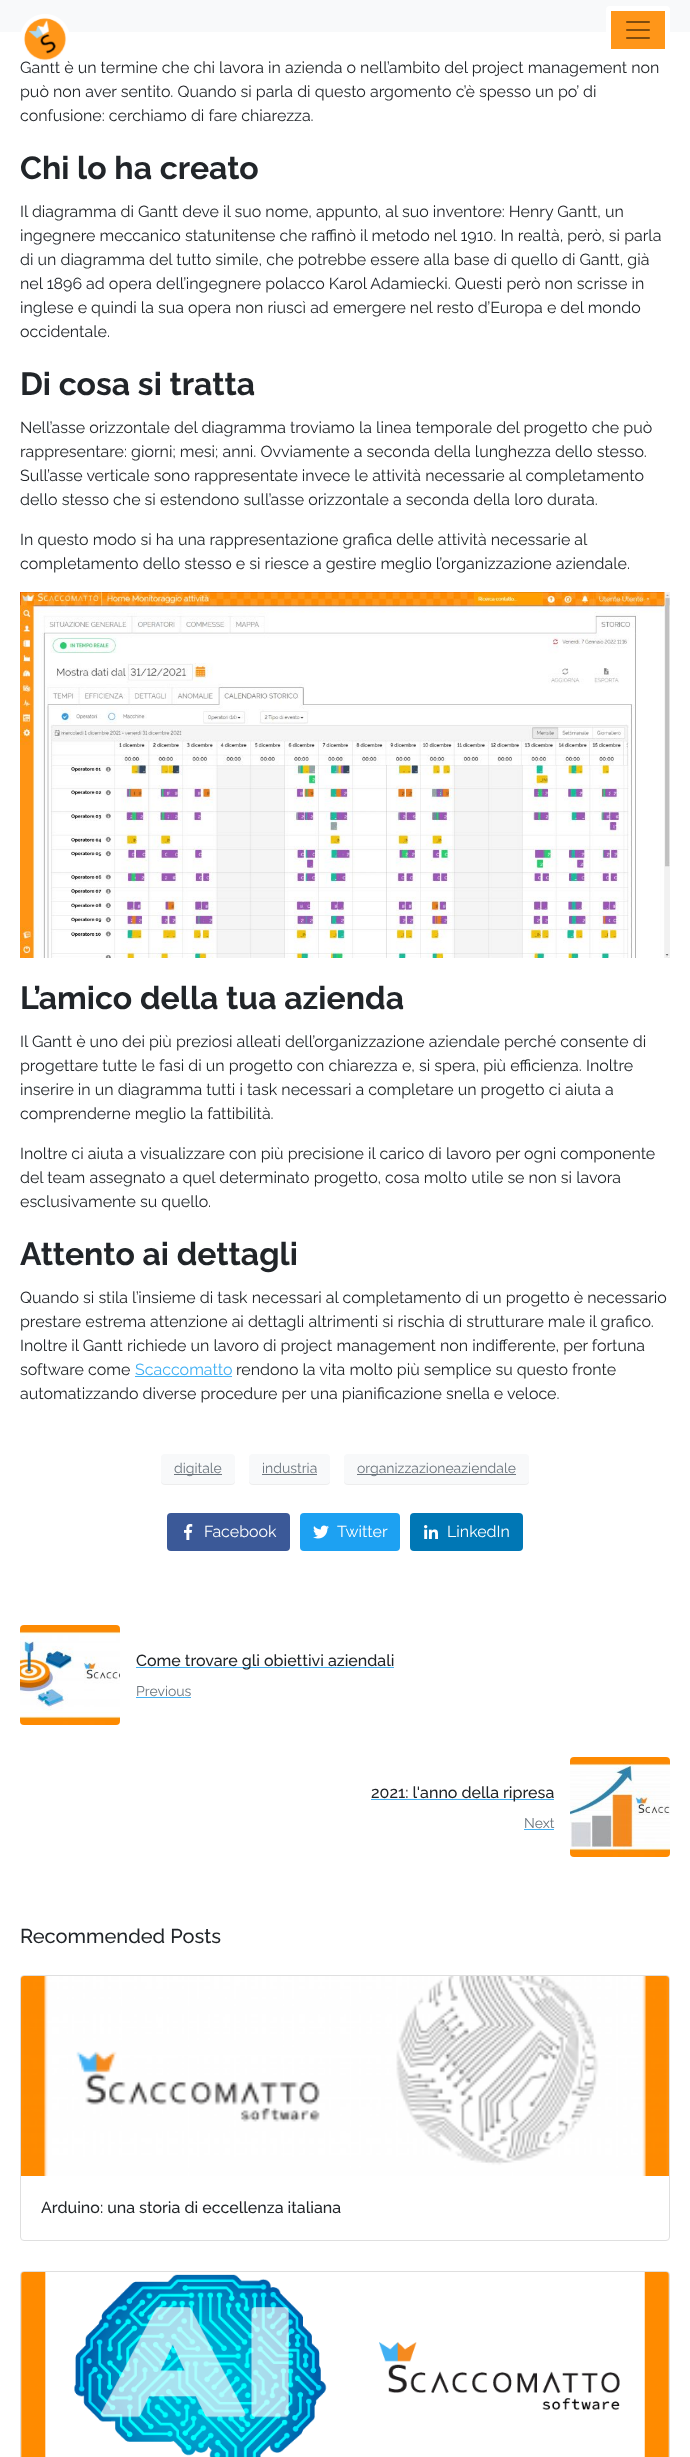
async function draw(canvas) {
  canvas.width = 690
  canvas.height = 2457
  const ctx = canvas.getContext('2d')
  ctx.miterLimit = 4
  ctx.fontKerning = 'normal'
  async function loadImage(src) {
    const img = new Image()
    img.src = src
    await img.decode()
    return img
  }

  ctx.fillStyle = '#fff'
  ctx.fillRect(0, 0, 690, 2457)
  ctx.fillStyle = '#f8f9fa'
  ctx.fillRect(0, 0, 690, 32)
  ctx.font = '16px Raleway'
  ctx.fillStyle = '#212529'
  ctx.fillText('Gantt è un termine che chi lavora in azienda o nell’ambito del project management non', 20, 73)
  ctx.drawImage(await loadImage('image0.png'), 21, 14, 48, 50)
  ctx.fillStyle = '#ff9619'
  ctx.beginPath()
  ctx.roundRect(608.5, 8.5, 59, 43, 1.5)
  ctx.fill()
  ctx.strokeStyle = '#fff'
  ctx.lineWidth = 5
  ctx.stroke()
  ctx.drawImage(await loadImage('image1.png'), 626, 21, 24, 18)
  ctx.fillStyle = '#212529'
  ctx.fillText('può non aver sentito. Quando si parla di questo argomento c’è spesso un po’ di', 20, 97)
  ctx.fillText('confusione: cerchiamo di fare chiarezza.', 20, 121)
  ctx.font = 'bold 32px Raleway'
  ctx.fillText('Chi lo ha creato', 20, 179)
  ctx.font = '16px Raleway'
  ctx.fillText('Il diagramma di Gantt deve il suo nome, appunto, al suo inventore: Henry Gantt, un', 20, 217)
  ctx.fillText('ingegnere meccanico statunitense che raffinò il metodo nel 1910. In realtà, però, si parla', 20, 241)
  ctx.fillText('di un diagramma del tutto simile, che potrebbe essere alla base di quello di Gantt, già', 20, 265)
  ctx.fillText('nel 1896 ad opera dell’ingegnere polacco Karol Adamiecki. Questi però non scrisse in', 20, 289)
  ctx.fillText('inglese e quindi la sua opera non riuscì ad emergere nel resto d’Europa e del mondo', 20, 313)
  ctx.fillText('occidentale.', 20, 337)
  ctx.font = 'bold 32px Raleway'
  ctx.fillText('Di cosa si tratta', 20, 395)
  ctx.font = '16px Raleway'
  ctx.fillText('Nell’asse orizzontale del diagramma troviamo la linea temporale del progetto che può', 20, 433)
  ctx.fillText('rappresentare: giorni; mesi; anni. Ovviamente a seconda della lunghezza dello stesso.', 20, 457)
  ctx.fillText('Sull’asse verticale sono rappresentate invece le attività necessarie al completamento', 20, 481)
  ctx.fillText('dello stesso che si estendono sull’asse orizzontale a seconda della loro durata.', 20, 505)
  ctx.fillText('In questo modo si ha una rappresentazione grafica delle attività necessarie al', 20, 545)
  ctx.fillText('completamento dello stesso e si riesce a gestire meglio l’organizzazione aziendale.', 20, 569)
  ctx.drawImage(await loadImage('image2.png'), 20, 592, 650, 366)
  ctx.font = 'bold 32px Raleway'
  ctx.fillText('L’amico della tua azienda', 20, 1009)
  ctx.font = '16px Raleway'
  ctx.fillText('Il Gantt è uno dei più preziosi alleati dell’organizzazione aziendale perché consente di', 20, 1047)
  ctx.fillText('progettare tutte le fasi di un progetto con chiarezza e, si spera, più efficienza. Inoltre', 20, 1071)
  ctx.fillText('inserire in un diagramma tutti i task necessari a completare un progetto ci aiuta a', 20, 1095)
  ctx.fillText('comprenderne meglio la fattibilità.', 20, 1119)
  ctx.fillText('Inoltre ci aiuta a visualizzare con più precisione il carico di lavoro per ogni componente', 20, 1159)
  ctx.fillText('del team assegnato a quel determinato progetto, cosa molto utile se non si lavora', 20, 1183)
  ctx.fillText('esclusivamente su quello.', 20, 1207)
  ctx.font = 'bold 32px Raleway'
  ctx.fillText('Attento ai dettagli', 20, 1265)
  ctx.font = '16px Raleway'
  ctx.fillText('Quando si stila l’insieme di task necessari al completamento di un progetto è necessario', 20, 1303)
  ctx.fillText('prestare estrema attenzione ai dettagli altrimenti si rischia di strutturare male il grafico.', 20, 1327)
  ctx.fillText('Inoltre il Gantt richiede un lavoro di project management non indifferente, per fortuna', 20, 1351)
  ctx.fillText('software come', 20, 1375)
  ctx.fillStyle = '#41b0f4'
  ctx.fillText('Scaccomatto', 135, 1375)
  ctx.fillRect(135, 1376, 97, 1)
  ctx.fillStyle = '#212529'
  ctx.fillText('rendono la vita molto più semplice su questo fronte', 236, 1375)
  ctx.fillText('automatizzando diverse procedure per una pianificazione snella e veloce.', 20, 1399)
  ctx.fillStyle = '#00000012'
  ctx.filter = 'blur(0.5px)'
  ctx.beginPath()
  ctx.roundRect(161, 1455, 74, 30, 4)
  ctx.fill()
  ctx.filter = 'none'
  ctx.fillStyle = '#f8f9fa'
  ctx.beginPath()
  ctx.roundRect(161, 1454, 74, 30, 4)
  ctx.fill()
  ctx.fillStyle = '#6c757d'
  ctx.fillRect(174, 1474, 48, 1)
  ctx.font = '14px Raleway'
  ctx.fillText('digitale', 174, 1473)
  ctx.fillStyle = '#00000012'
  ctx.filter = 'blur(0.5px)'
  ctx.beginPath()
  ctx.roundRect(249, 1455, 81, 30, 4)
  ctx.fill()
  ctx.filter = 'none'
  ctx.fillStyle = '#f8f9fa'
  ctx.beginPath()
  ctx.roundRect(249, 1454, 81, 30, 4)
  ctx.fill()
  ctx.fillStyle = '#6c757d'
  ctx.fillText('industria', 262, 1473)
  ctx.fillRect(262, 1474, 55, 1)
  ctx.fillStyle = '#00000012'
  ctx.filter = 'blur(0.5px)'
  ctx.beginPath()
  ctx.roundRect(344, 1455, 185, 30, 4)
  ctx.fill()
  ctx.filter = 'none'
  ctx.fillStyle = '#f8f9fa'
  ctx.beginPath()
  ctx.roundRect(344, 1454, 185, 30, 4)
  ctx.fill()
  ctx.fillStyle = '#6c757d'
  ctx.fillRect(357, 1474, 159, 1)
  ctx.fillText('organizzazioneaziendale', 357, 1473)
  ctx.fillStyle = '#3b5998'
  ctx.beginPath()
  ctx.roundRect(167, 1513, 123, 38, 4)
  ctx.fill()
  ctx.drawImage(await loadImage('image3.png'), 184, 1524, 9, 16)
  ctx.font = '16px Raleway'
  ctx.fillStyle = '#fff'
  ctx.fillText('Facebook', 204, 1537)
  ctx.fillStyle = '#1da1f2'
  ctx.beginPath()
  ctx.roundRect(300, 1513, 100, 38, 4)
  ctx.fill()
  ctx.drawImage(await loadImage('image4.png'), 313, 1525, 16, 14)
  ctx.fillStyle = '#fff'
  ctx.fillText('Twitter', 337, 1537)
  ctx.fillStyle = '#0077b5'
  ctx.beginPath()
  ctx.roundRect(410, 1513, 113, 38, 4)
  ctx.fill()
  ctx.drawImage(await loadImage('image5.png'), 424, 1525, 14, 14)
  ctx.fillStyle = '#fff'
  ctx.fillText('LinkedIn', 447, 1537)
  ctx.drawImage(await loadImage('image6.png'), 20, 1625, 100, 100)
  ctx.fillStyle = '#41b0f4'
  ctx.fillRect(136, 1667, 258, 1)
  ctx.font = '500 16px Raleway'
  ctx.fillStyle = '#212529'
  ctx.fillText('Come trovare gli obiettivi aziendali', 136, 1666)
  ctx.font = '14px Raleway'
  ctx.fillStyle = '#6c757d'
  ctx.fillText('Previous', 136, 1696)
  ctx.fillStyle = '#41b0f4'
  ctx.fillRect(136, 1697, 55, 1)
  ctx.fillRect(371, 1799, 183, 1)
  ctx.font = '500 16px Raleway'
  ctx.fillStyle = '#212529'
  ctx.fillText('2021: l\'anno della ripresa', 371, 1798)
  ctx.font = '14px Raleway'
  ctx.fillStyle = '#6c757d'
  ctx.fillText('Next', 524, 1828)
  ctx.fillStyle = '#41b0f4'
  ctx.fillRect(524, 1829, 30, 1)
  ctx.drawImage(await loadImage('image7.png'), 570, 1757, 100, 100)
  ctx.font = '500 20px Raleway'
  ctx.fillStyle = '#212529'
  ctx.fillText('Recommended Posts', 20, 1943)
  ctx.beginPath()
  ctx.roundRect(20.5, 1975.5, 649, 265, 3.5)
  ctx.strokeStyle = '#dfdfdf'
  ctx.lineWidth = 1
  ctx.stroke()
  ctx.drawImage(await loadImage('image8.png'), 21, 1976, 648, 200)
  ctx.font = '500 16px Raleway'
  ctx.fillText('Arduino: una storia di eccellenza italiana', 41, 2213)
  ctx.beginPath()
  ctx.roundRect(20.5, 2271.5, 649, 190, 3.5)
  ctx.stroke()
  ctx.drawImage(await loadImage('image9.png'), 21, 2272, 648, 185)
}

draw(document.querySelector('canvas'))
